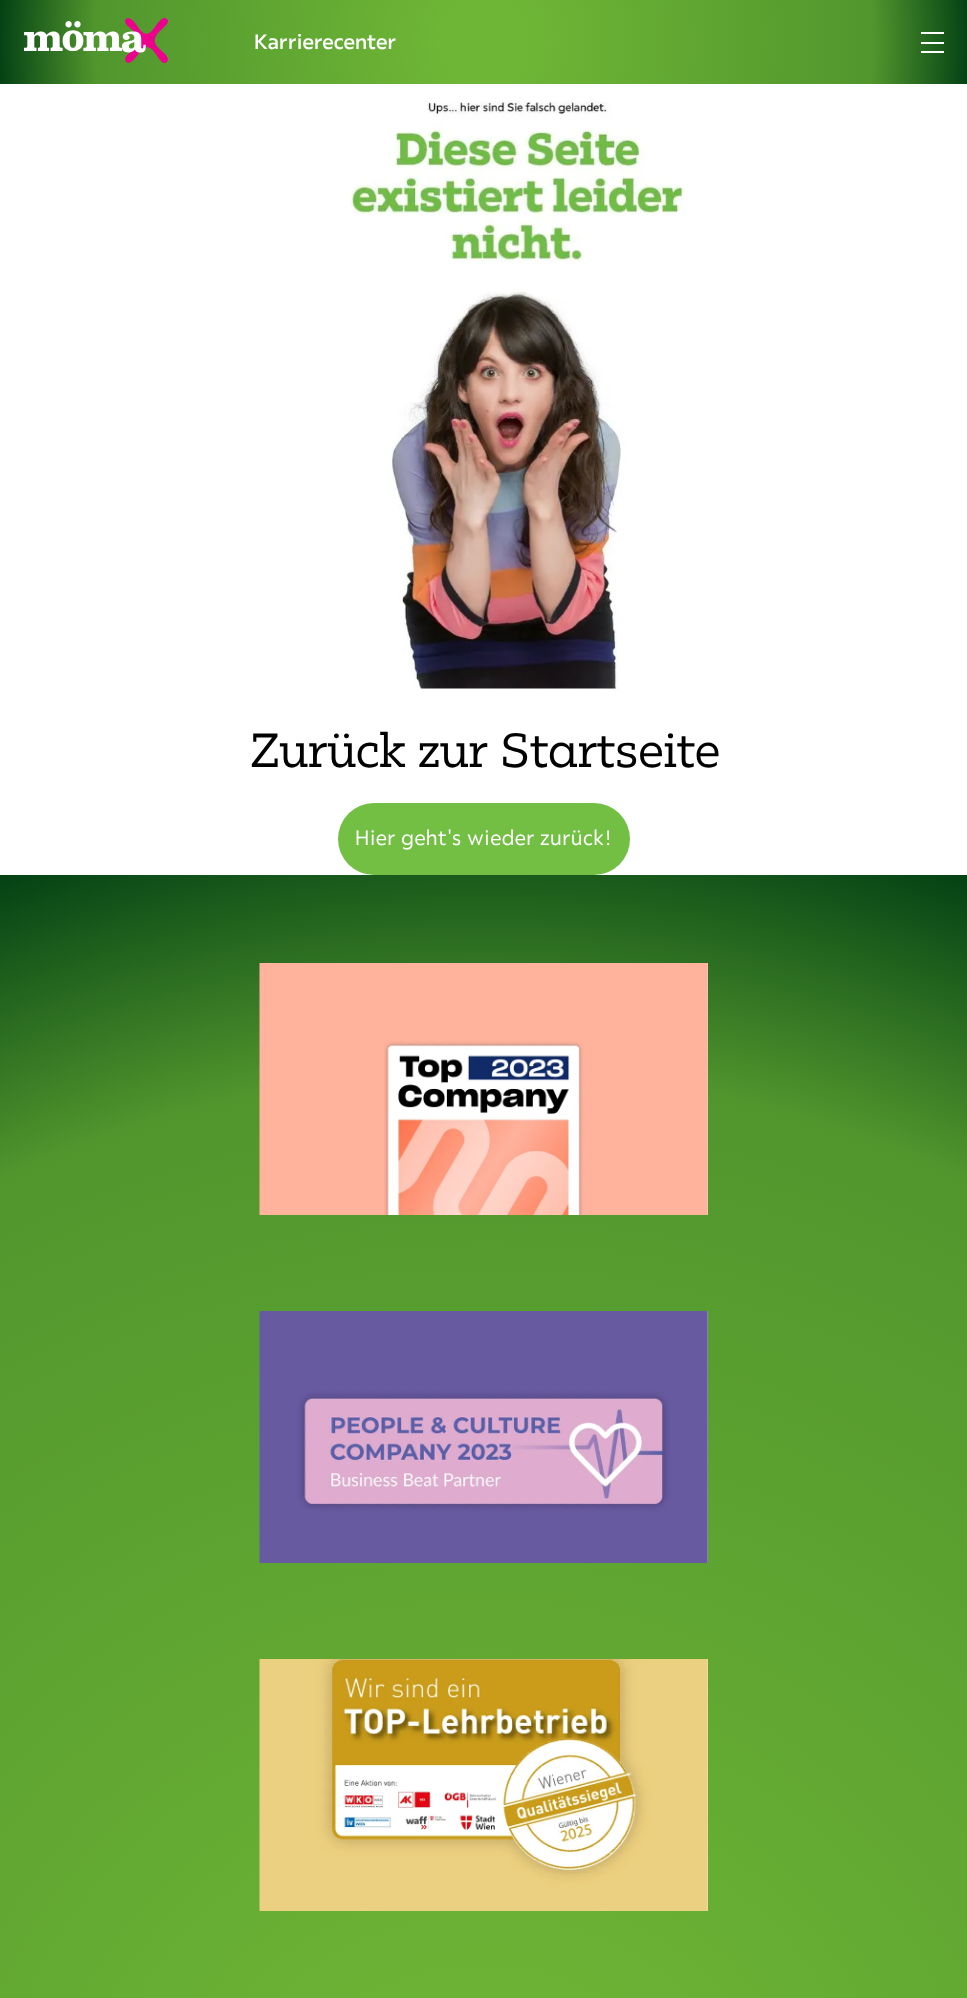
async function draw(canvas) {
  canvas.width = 967
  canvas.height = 1998
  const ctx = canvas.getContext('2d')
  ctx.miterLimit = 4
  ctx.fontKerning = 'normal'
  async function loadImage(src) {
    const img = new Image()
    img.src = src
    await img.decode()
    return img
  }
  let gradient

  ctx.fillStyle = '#fff'
  ctx.fillRect(0, 0, 967, 1998)
  gradient = ctx.createRadialGradient(484, 42, 0, 484, 42, 486)
  gradient.addColorStop(0.09, '#6eb636')
  gradient.addColorStop(0.8, '#51962d')
  gradient.addColorStop(1, '#034114')
  ctx.fillStyle = gradient
  ctx.fillRect(0, 0, 967, 84)
  ctx.drawImage(await loadImage('image0.png'), 24, 18, 144, 45)
  ctx.letterSpacing = '0.15px'
  ctx.font = '500 21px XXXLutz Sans'
  ctx.fillStyle = '#fff'
  ctx.fillText('Karrierecenter', 254, 49)
  ctx.fillRect(921, 32, 23, 2)
  ctx.fillRect(921, 42, 23, 2)
  ctx.fillRect(921, 51, 23, 2)
  ctx.drawImage(await loadImage('image1.png'), 350, 101, 335, 588)
  ctx.wordSpacing = '1px'
  ctx.font = '48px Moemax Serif'
  ctx.fillStyle = '#000'
  ctx.fillText('Zurück zur Startseite', 250, 767)
  ctx.fillStyle = '#72bf44'
  ctx.beginPath()
  ctx.roundRect(338, 803, 292, 72, 36)
  ctx.fill()
  ctx.letterSpacing = '0.6px'
  ctx.wordSpacing = '0px'
  ctx.font = '21px XXXLutz Sans'
  ctx.fillStyle = '#fff'
  ctx.fillText('Hier geht\'s wieder zurück!', 355, 845)
  gradient = ctx.createRadialGradient(484, 2211, 0, 484, 2211, 1421)
  gradient.addColorStop(0.09, '#6eb636')
  gradient.addColorStop(0.8, '#51962d')
  gradient.addColorStop(1, '#034114')
  ctx.fillStyle = gradient
  ctx.fillRect(0, 875, 967, 1123)
  ctx.drawImage(await loadImage('image2.png'), 259, 963, 449, 252)
  ctx.drawImage(await loadImage('image3.png'), 259, 1311, 449, 252)
  ctx.drawImage(await loadImage('image4.png'), 259, 1659, 449, 252)
}

draw(document.querySelector('canvas'))
